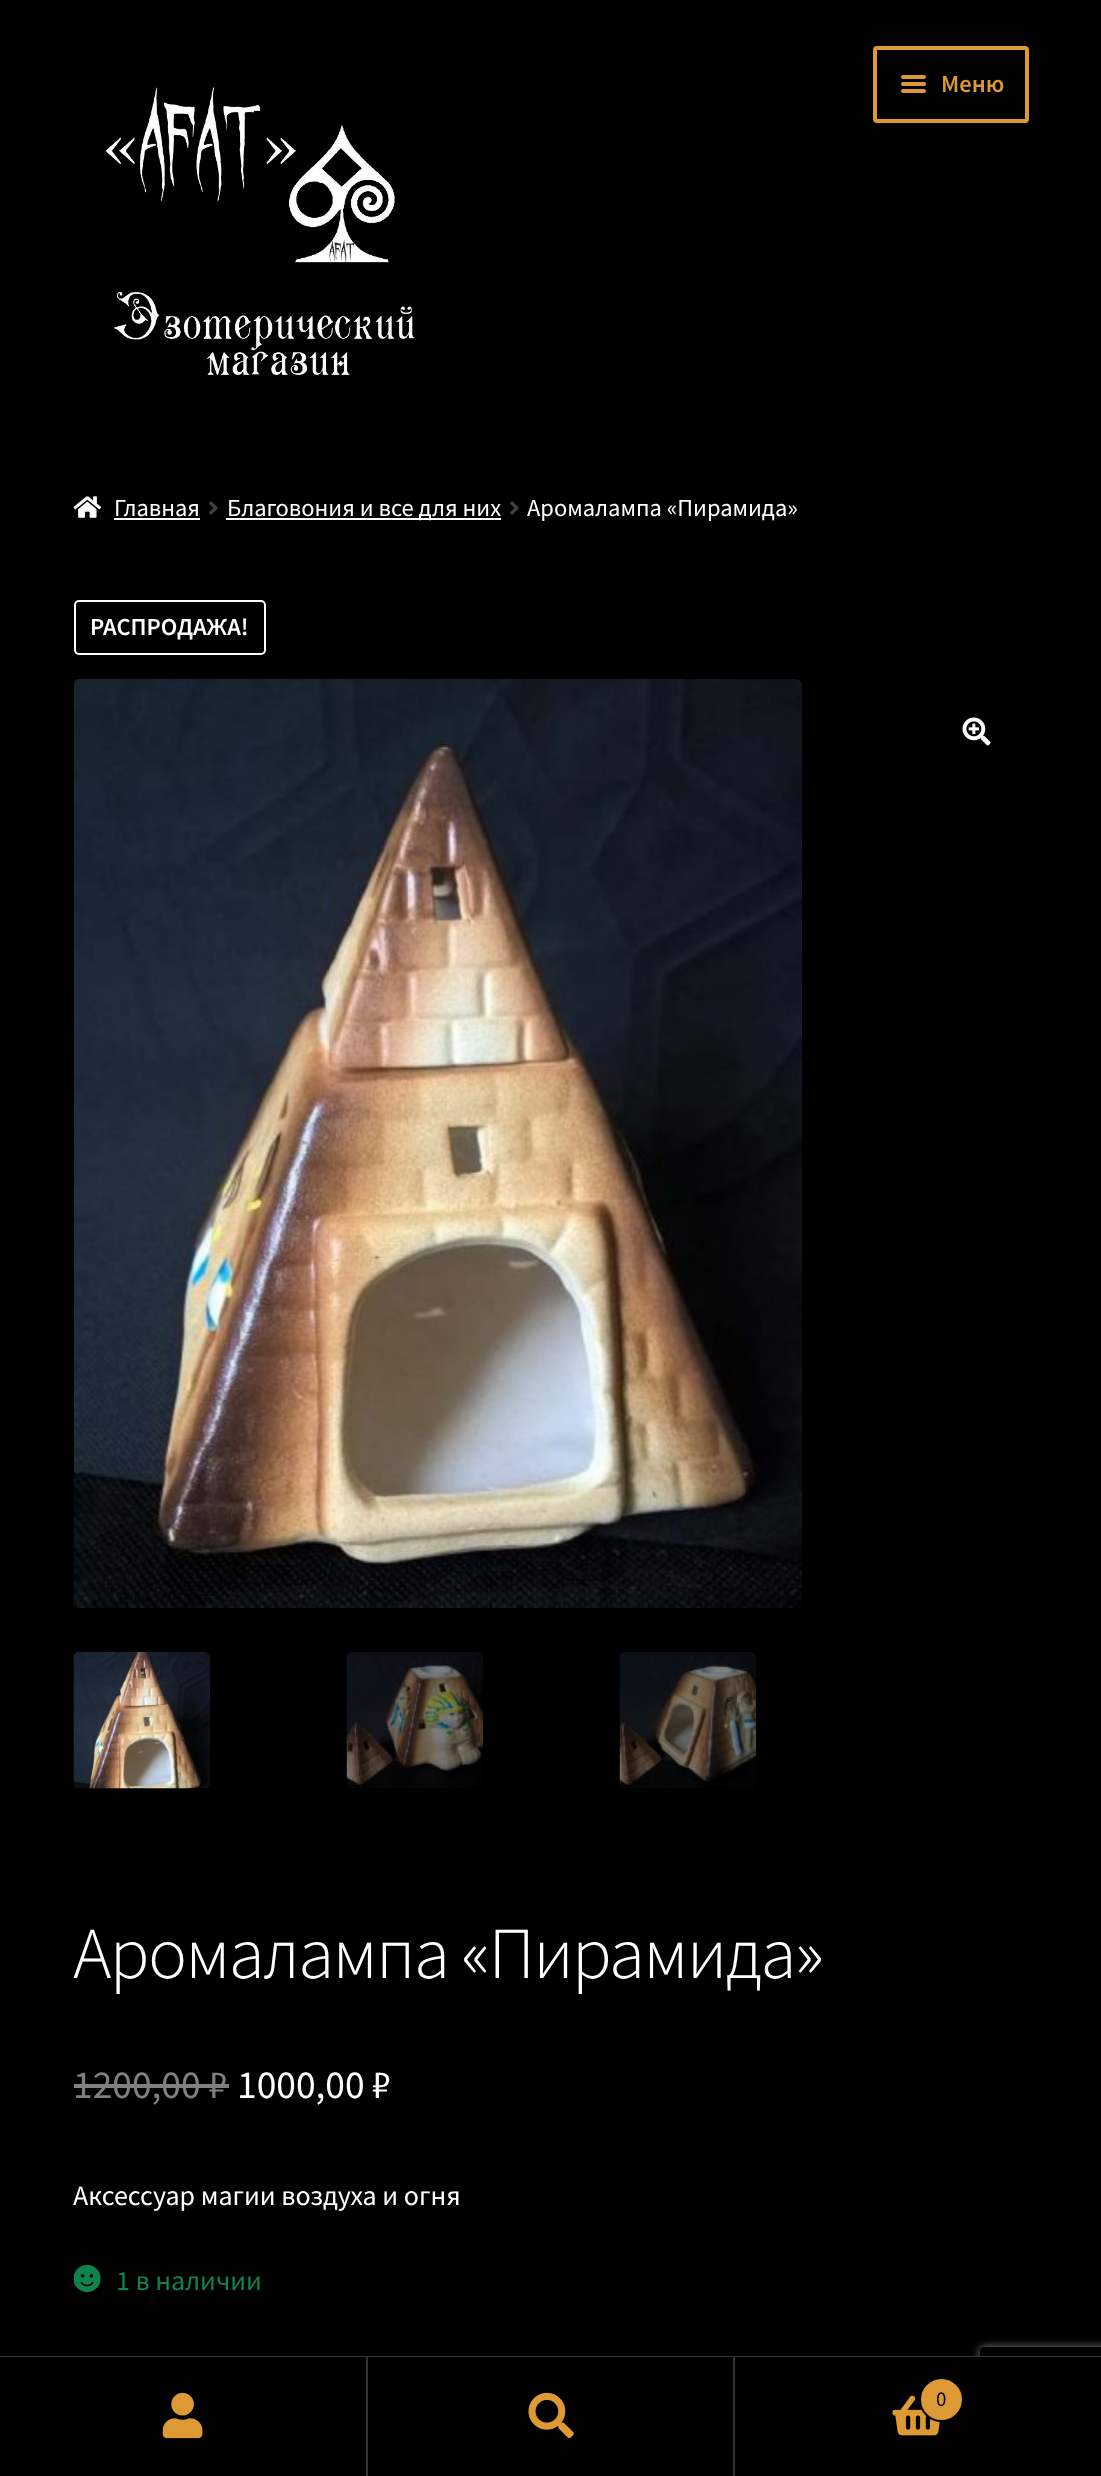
async function draw(canvas) {
  canvas.width = 1101
  canvas.height = 2476
  const ctx = canvas.getContext('2d')
  ctx.miterLimit = 4
  ctx.fontKerning = 'normal'
  async function loadImage(src) {
    const img = new Image()
    img.src = src
    await img.decode()
    return img
  }

  ctx.fillStyle = '#000'
  ctx.fillRect(0, 0, 1101, 2476)
  ctx.beginPath()
  ctx.roundRect(875, 48, 152, 73, 2)
  ctx.strokeStyle = '#d93'
  ctx.lineWidth = 4
  ctx.stroke()
  ctx.fillStyle = '#d93'
  ctx.beginPath()
  ctx.roundRect(901, 75, 25, 4, 2)
  ctx.fill()
  ctx.beginPath()
  ctx.roundRect(901, 82, 25, 4, 2)
  ctx.fill()
  ctx.font = '600 24.5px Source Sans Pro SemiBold'
  ctx.fillText('Меню', 941, 92)
  ctx.beginPath()
  ctx.roundRect(901, 89, 25, 4, 2)
  ctx.fill()
  ctx.drawImage(await loadImage('image0.png'), 103, 87, 313, 291)
  ctx.drawImage(await loadImage('image1.png'), 73, 496, 29, 22)
  ctx.font = '24.5px Source Sans Pro'
  ctx.fillStyle = '#fff'
  ctx.fillText('Главная', 114, 516)
  ctx.fillRect(114, 518, 86, 2)
  ctx.drawImage(await loadImage('image2.png'), 209, 501, 9, 14)
  ctx.fillRect(226, 518, 275, 2)
  ctx.fillText('Благовония и все для них', 227, 516)
  ctx.drawImage(await loadImage('image2.png'), 510, 501, 9, 14)
  ctx.fillText('Аромалампа «Пирамида»', 527, 516)
  ctx.beginPath()
  ctx.roundRect(75, 601, 190, 53, 4)
  ctx.strokeStyle = '#fff'
  ctx.lineWidth = 2
  ctx.stroke()
  ctx.font = '600 24.5px Source Sans Pro SemiBold'
  ctx.fillText('РАСПРОДАЖА!', 90, 635)
  ctx.drawImage(await loadImage('image3.png'), 74, 679, 728, 929)
  ctx.drawImage(await loadImage('image4.png'), 962, 717, 29, 29)
  ctx.drawImage(await loadImage('image5.png'), 73, 1652, 137, 137)
  ctx.drawImage(await loadImage('image6.png'), 346, 1652, 137, 136)
  ctx.drawImage(await loadImage('image7.png'), 619, 1652, 137, 136)
  ctx.letterSpacing = '-1.75px'
  ctx.font = '300 73.25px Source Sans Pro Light'
  ctx.fillText('Аромалампа «Пирамида»', 73, 1978)
  ctx.letterSpacing = '0px'
  ctx.font = '39.5px Source Sans Pro'
  ctx.fillStyle = '#808080'
  ctx.fillText('1200,00', 73, 2098)
  ctx.fillRect(74, 2084, 136, 4)
  ctx.fillText('₽', 209, 2098)
  ctx.fillRect(210, 2084, 19, 4)
  ctx.fillStyle = '#fff'
  ctx.fillText('1000,00 ₽', 237, 2098)
  ctx.font = '28px Source Sans Pro'
  ctx.fillText('Аксессуар магии воздуха и огня', 73, 2205)
  ctx.drawImage(await loadImage('image8.png'), 74, 2265, 27, 27)
  ctx.fillStyle = '#0f834d'
  ctx.fillText('1 в наличии', 116, 2290)
  ctx.fillStyle = '#000000b3'
  ctx.filter = 'blur(5px)'
  ctx.beginPath()
  ctx.rect(0, 2356, 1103, 120)
  ctx.fill()
  ctx.filter = 'none'
  ctx.save()
  ctx.beginPath()
  ctx.moveTo(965, 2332)
  ctx.lineTo(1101, 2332)
  ctx.lineTo(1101, 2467)
  ctx.lineTo(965, 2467)
  ctx.closePath()
  ctx.moveTo(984, 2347)
  ctx.lineTo(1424, 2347)
  ctx.bezierCurveTo(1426, 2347, 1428, 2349, 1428, 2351)
  ctx.lineTo(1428, 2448)
  ctx.bezierCurveTo(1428, 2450, 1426, 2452, 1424, 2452)
  ctx.lineTo(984, 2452)
  ctx.bezierCurveTo(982, 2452, 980, 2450, 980, 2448)
  ctx.lineTo(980, 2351)
  ctx.bezierCurveTo(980, 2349, 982, 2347, 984, 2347)
  ctx.closePath()
  ctx.clip('evenodd')
  ctx.fillStyle = '#808080'
  ctx.filter = 'blur(4.5px)'
  ctx.beginPath()
  ctx.roundRect(980, 2347, 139, 105, 4)
  ctx.fill()
  ctx.filter = 'none'
  ctx.restore()
  ctx.fillStyle = '#333'
  ctx.fillRect(0, 2356, 1101, 1)
  ctx.fillRect(366, 2357, 2, 119)
  ctx.drawImage(await loadImage('image9.png'), 162, 2392, 41, 47)
  ctx.fillRect(733, 2357, 2, 119)
  ctx.drawImage(await loadImage('image10.png'), 528, 2392, 46, 47)
  ctx.fillStyle = '#000'
  ctx.fillRect(972, 2357, 129, 103)
  ctx.drawImage(await loadImage('image11.png'), 892, 2395, 48, 41)
  ctx.fillStyle = '#d93'
  ctx.beginPath()
  ctx.arc(941.5, 2399.5, 21.5, 0, 2 * Math.PI)
  ctx.fill()
  ctx.strokeStyle = '#000'
  ctx.stroke()
  ctx.font = '21px Source Sans Pro'
  ctx.fillStyle = '#000'
  ctx.fillText('0', 936, 2406)
}

draw(document.querySelector('canvas'))
